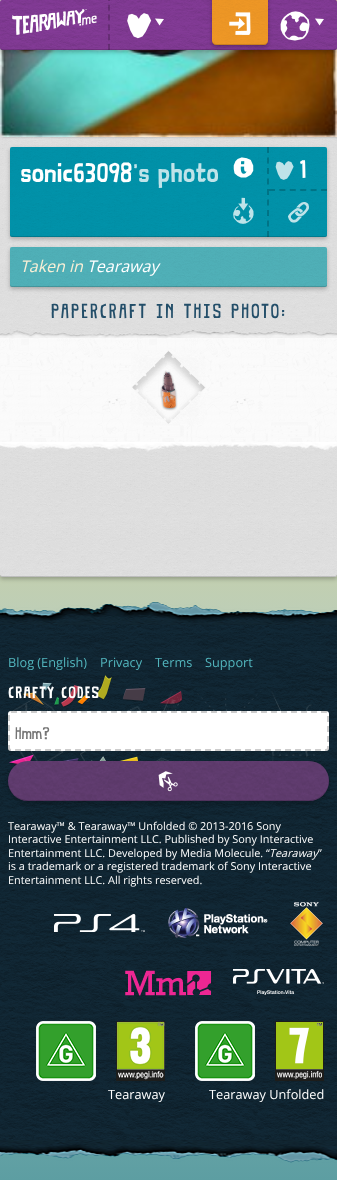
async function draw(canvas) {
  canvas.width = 337
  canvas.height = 1180
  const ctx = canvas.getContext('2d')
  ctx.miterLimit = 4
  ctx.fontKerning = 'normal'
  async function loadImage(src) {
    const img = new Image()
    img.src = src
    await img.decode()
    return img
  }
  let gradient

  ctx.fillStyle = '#fff'
  ctx.fillRect(0, 0, 337, 1180)
  gradient = ctx.createLinearGradient(168, 0, 169, 1180)
  gradient.addColorStop(0, '#eeb061')
  gradient.addColorStop(0.2, '#ebd371')
  gradient.addColorStop(0.6, '#b2cdc8')
  gradient.addColorStop(1, '#5d9ea2')
  ctx.fillStyle = gradient
  ctx.fillRect(0, 575, 337, 605)
  ctx.fillStyle = '#00000040'
  ctx.filter = 'blur(2px)'
  ctx.beginPath()
  ctx.roundRect(0, -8, 337, 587, 2)
  ctx.fill()
  ctx.filter = 'none'
  ctx.fillStyle = '#e6e6e6'
  ctx.beginPath()
  ctx.roundRect(0, -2, 337, 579, 2)
  ctx.fill()
  ctx.drawImage(await loadImage('image6.png'), 0, 137, 337, 440)
  ctx.fillStyle = '#00000040'
  ctx.filter = 'blur(1px)'
  ctx.beginPath()
  ctx.rect(2, -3, 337, 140)
  ctx.fill()
  ctx.filter = 'none'
  ctx.drawImage(await loadImage('image7.png'), 0, 0, 337, 137)
  ctx.filter = 'blur(2px)'
  ctx.beginPath()
  ctx.roundRect(0, 2, 337, 50, 2)
  ctx.fill()
  ctx.filter = 'none'
  ctx.fillStyle = '#833b96'
  ctx.beginPath()
  ctx.roundRect(0, 0, 337, 50, 2)
  ctx.fill()
  ctx.drawImage(await loadImage('image0.png'), 0, 0, 337, 50)
  ctx.fillStyle = '#00000026'
  ctx.beginPath()
  ctx.moveTo(0, 47)
  ctx.bezierCurveTo(0, 48, 0, 50, 2, 50)
  ctx.lineTo(335, 50)
  ctx.lineTo(337, 49)
  ctx.lineTo(337, 47)
  ctx.bezierCurveTo(337, 48, 336, 49, 335, 49)
  ctx.lineTo(2, 49)
  ctx.bezierCurveTo(1, 49, 0, 48, 0, 47)
  ctx.closePath()
  ctx.fill()
  ctx.drawImage(await loadImage('image1.png'), 12, 9, 85, 26)
  ctx.beginPath()
  ctx.moveTo(109, -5)
  ctx.lineTo(109, 50)
  ctx.strokeStyle = '#00000033'
  ctx.lineWidth = 2
  ctx.setLineDash([6, 3.8])
  ctx.stroke()
  ctx.drawImage(await loadImage('image2.png'), 127, 13, 25, 26)
  ctx.fillStyle = '#fff'
  ctx.beginPath()
  ctx.moveTo(164, 19)
  ctx.lineTo(155, 18.5)
  ctx.lineTo(159.5, 25.5)
  ctx.closePath()
  ctx.fill()
  ctx.fillStyle = '#00000040'
  ctx.filter = 'blur(2px)'
  ctx.beginPath()
  ctx.roundRect(212, -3, 56, 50, 4)
  ctx.fill()
  ctx.filter = 'none'
  ctx.fillStyle = '#f49b27'
  ctx.beginPath()
  ctx.moveTo(212, -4)
  ctx.lineTo(268, -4)
  ctx.lineTo(268, 41)
  ctx.bezierCurveTo(268, 43, 266, 45, 264, 45)
  ctx.lineTo(216, 45)
  ctx.bezierCurveTo(214, 45, 212, 43, 212, 41)
  ctx.closePath()
  ctx.fill()
  ctx.drawImage(await loadImage('image3.png'), 212, 0, 56, 45)
  ctx.fillStyle = '#00000026'
  ctx.beginPath()
  ctx.moveTo(212, 40)
  ctx.bezierCurveTo(212, 47, 219, 45, 224, 45)
  ctx.lineTo(256, 45)
  ctx.bezierCurveTo(261, 45, 268, 47, 268, 40)
  ctx.bezierCurveTo(268, 42, 266, 44, 264, 44)
  ctx.lineTo(216, 44)
  ctx.bezierCurveTo(214, 44, 212, 42, 212, 40)
  ctx.closePath()
  ctx.fill()
  ctx.drawImage(await loadImage('image4.png'), 229, 12, 22, 23)
  ctx.drawImage(await loadImage('image5.png'), 280, 11, 30, 30)
  ctx.fillStyle = '#fff'
  ctx.beginPath()
  ctx.moveTo(324, 19)
  ctx.lineTo(315, 18.5)
  ctx.lineTo(319.5, 25.5)
  ctx.closePath()
  ctx.fill()
  ctx.fillStyle = '#00000026'
  ctx.beginPath()
  ctx.moveTo(0, 574)
  ctx.bezierCurveTo(0, 575, 0, 577, 2, 577)
  ctx.lineTo(335, 577)
  ctx.lineTo(337, 576)
  ctx.lineTo(337, 574)
  ctx.bezierCurveTo(337, 575, 336, 576, 335, 576)
  ctx.lineTo(2, 576)
  ctx.bezierCurveTo(1, 576, 0, 575, 0, 574)
  ctx.closePath()
  ctx.fill()
  ctx.fillStyle = '#00000040'
  ctx.filter = 'blur(2px)'
  ctx.beginPath()
  ctx.roundRect(10, 149, 317, 90, 2)
  ctx.fill()
  ctx.filter = 'none'
  ctx.fillStyle = '#0296ae'
  ctx.beginPath()
  ctx.roundRect(10, 147, 317, 90, 2)
  ctx.fill()
  ctx.drawImage(await loadImage('image8.png'), 10, 147, 317, 90)
  ctx.fillStyle = '#00000026'
  ctx.beginPath()
  ctx.moveTo(10, 234)
  ctx.bezierCurveTo(10, 235, 10, 237, 12, 237)
  ctx.lineTo(326, 237)
  ctx.lineTo(327, 236)
  ctx.lineTo(327, 234)
  ctx.bezierCurveTo(327, 235, 326, 236, 325, 236)
  ctx.lineTo(12, 236)
  ctx.bezierCurveTo(11, 236, 10, 235, 10, 234)
  ctx.closePath()
  ctx.fill()
  ctx.font = 'bold 25.5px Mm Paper'
  ctx.fillStyle = '#fff'
  ctx.fillText('sonic63098', 20, 182)
  ctx.fillStyle = '#bfe3e9'
  ctx.fillText('\'s photo', 133, 182)
  ctx.drawImage(await loadImage('image9.png'), 233, 157, 21, 21)
  ctx.beginPath()
  ctx.moveTo(268, 147)
  ctx.lineTo(268, 237)
  ctx.setLineDash([6, 4.5])
  ctx.stroke()
  ctx.drawImage(await loadImage('image10.png'), 275, 161, 19, 19)
  ctx.font = 'bold 24px Mm Paper'
  ctx.fillStyle = '#fff'
  ctx.fillText('1', 299, 178)
  ctx.beginPath()
  ctx.moveTo(269, 190)
  ctx.lineTo(327, 190)
  ctx.setLineDash([6, 4.4])
  ctx.stroke()
  ctx.drawImage(await loadImage('image11.png'), 288, 202, 21, 21)
  ctx.drawImage(await loadImage('image12.png'), 233, 197, 21, 27)
  ctx.fillStyle = '#00000040'
  ctx.filter = 'blur(2px)'
  ctx.beginPath()
  ctx.roundRect(10, 249, 317, 40, 2)
  ctx.fill()
  ctx.filter = 'none'
  ctx.fillStyle = '#52b5bd'
  ctx.beginPath()
  ctx.roundRect(10, 247, 317, 40, 2)
  ctx.fill()
  ctx.drawImage(await loadImage('image13.png'), 10, 247, 317, 40)
  ctx.fillStyle = '#00000026'
  ctx.beginPath()
  ctx.moveTo(10, 284)
  ctx.bezierCurveTo(10, 285, 10, 287, 12, 287)
  ctx.lineTo(326, 287)
  ctx.lineTo(327, 286)
  ctx.lineTo(327, 284)
  ctx.bezierCurveTo(327, 285, 326, 286, 325, 286)
  ctx.lineTo(12, 286)
  ctx.bezierCurveTo(11, 286, 10, 285, 10, 284)
  ctx.closePath()
  ctx.fill()
  ctx.font = 'italic 16px Open Sans'
  ctx.fillStyle = '#f8efd6'
  ctx.fillText('Taken in', 20, 272)
  ctx.fillStyle = '#fff'
  ctx.fillText('Tearaway', 87, 272)
  ctx.letterSpacing = '2px'
  ctx.font = '19.25px MmPaper'
  ctx.fillStyle = '#234e69'
  ctx.fillText('PAPERCRAFT IN THIS PHOTO:', 51, 318)
  ctx.drawImage(await loadImage('image14.png'), 0, 338, 337, 104)
  ctx.drawImage(await loadImage('image15.png'), 0, 330, 337, 122)
  ctx.drawImage(await loadImage('image16.png'), 168, 361, 33, 29)
  ctx.drawImage(await loadImage('image19.png'), 160, 370, 18, 41)
  ctx.drawImage(await loadImage('image18.png'), 132, 350, 74, 74)
  ctx.drawImage(await loadImage('image17.png'), 131, 350, 75, 74)
  ctx.fillStyle = '#122937'
  ctx.beginPath()
  ctx.moveTo(2, 625)
  ctx.lineTo(337, 625)
  ctx.lineTo(337, 1140)
  ctx.lineTo(0, 1140)
  ctx.lineTo(0, 625)
  ctx.closePath()
  ctx.fill()
  ctx.drawImage(await loadImage('image20.png'), 0, 625, 337, 515)
  ctx.drawImage(await loadImage('image21.png'), 0, 602, 337, 561)
  ctx.letterSpacing = '0px'
  ctx.font = '12.75px Open Sans'
  ctx.fillStyle = '#52b5bd'
  ctx.fillText('Blog (English)', 8, 667)
  ctx.fillText('Privacy', 100, 667)
  ctx.fillText('Terms', 155, 667)
  ctx.fillText('Support', 205, 667)
  ctx.drawImage(await loadImage('image23.png'), 9, 675, 173, 90)
  ctx.drawImage(await loadImage('image22.png'), 8, 691, 313, 71)
  ctx.letterSpacing = '1px'
  ctx.font = 'bold 15.5px Mm Paper'
  ctx.fillStyle = '#fff'
  ctx.fillText('CRAFTY CODES', 8, 698)
  ctx.beginPath()
  ctx.roundRect(8, 711, 321, 40, 3)
  ctx.fill()
  ctx.beginPath()
  ctx.moveTo(11, 712)
  ctx.lineTo(326, 712)
  ctx.bezierCurveTo(327, 712, 328, 713, 328, 714)
  ctx.lineTo(328, 748)
  ctx.bezierCurveTo(328, 749, 327, 750, 326, 750)
  ctx.lineTo(11, 750)
  ctx.bezierCurveTo(10, 750, 9, 749, 9, 748)
  ctx.lineTo(9, 714)
  ctx.bezierCurveTo(9, 713, 10, 712, 11, 712)
  ctx.closePath()
  ctx.setLineDash([6, 4])
  ctx.stroke()
  ctx.letterSpacing = '0px'
  ctx.font = '16px MmPaper'
  ctx.fillStyle = '#757575'
  ctx.fillText('Hmm?', 15, 739)
  ctx.fillStyle = '#00000040'
  ctx.filter = 'blur(2px)'
  ctx.beginPath()
  ctx.roundRect(8, 763, 321, 40, 20)
  ctx.fill()
  ctx.filter = 'none'
  ctx.fillStyle = '#684178'
  ctx.beginPath()
  ctx.roundRect(8, 761, 321, 40, 20)
  ctx.fill()
  ctx.drawImage(await loadImage('image24.png'), 8, 761, 321, 40)
  ctx.fillStyle = '#00000026'
  ctx.beginPath()
  ctx.moveTo(8, 780)
  ctx.bezierCurveTo(8, 792, 17, 801, 28, 801)
  ctx.lineTo(309, 801)
  ctx.bezierCurveTo(320, 801, 329, 792, 329, 780)
  ctx.bezierCurveTo(329, 791, 320, 800, 309, 800)
  ctx.lineTo(28, 800)
  ctx.bezierCurveTo(17, 800, 8, 791, 8, 780)
  ctx.closePath()
  ctx.fill()
  ctx.drawImage(await loadImage('image25.png'), 158, 771, 20, 21)
  ctx.font = '10.9px Open Sans'
  ctx.fillStyle = '#fff'
  ctx.fillText('Tearaway™ & Tearaway™ Unfolded © 2013-2016 Sony', 8, 830)
  ctx.fillText('Interactive Entertainment LLC. Published by Sony Interactive', 8, 843)
  ctx.fillText('Entertainment LLC. Developed by Media Molecule. “', 8, 857)
  ctx.font = 'italic 10.9px Open Sans'
  ctx.fillText('Tearaway', 269, 857)
  ctx.font = '10.9px Open Sans'
  ctx.fillText('”', 318, 857)
  ctx.fillText('is a trademark or a registered trademark of Sony Interactive', 8, 870)
  ctx.fillText('Entertainment LLC. All rights reserved.', 8, 884)
  ctx.drawImage(await loadImage('image26.png'), 54, 914, 91, 18)
  ctx.drawImage(await loadImage('image27.png'), 168, 908, 100, 30)
  ctx.drawImage(await loadImage('image28.png'), 290, 902, 33, 44)
  ctx.drawImage(await loadImage('image29.png'), 125, 970, 86, 26)
  ctx.drawImage(await loadImage('image30.png'), 233, 969, 91, 26)
  ctx.drawImage(await loadImage('image31.png'), 36, 1021, 60, 60)
  ctx.drawImage(await loadImage('image32.png'), 116, 1021, 49, 60)
  ctx.font = '12.75px Open Sans'
  ctx.fillText('Tearaway', 108, 1099)
  ctx.drawImage(await loadImage('image33.png'), 195, 1021, 60, 60)
  ctx.drawImage(await loadImage('image34.png'), 275, 1021, 49, 60)
  ctx.fillText('Tearaway Unfolded', 209, 1099)
}

draw(document.querySelector('canvas'))
